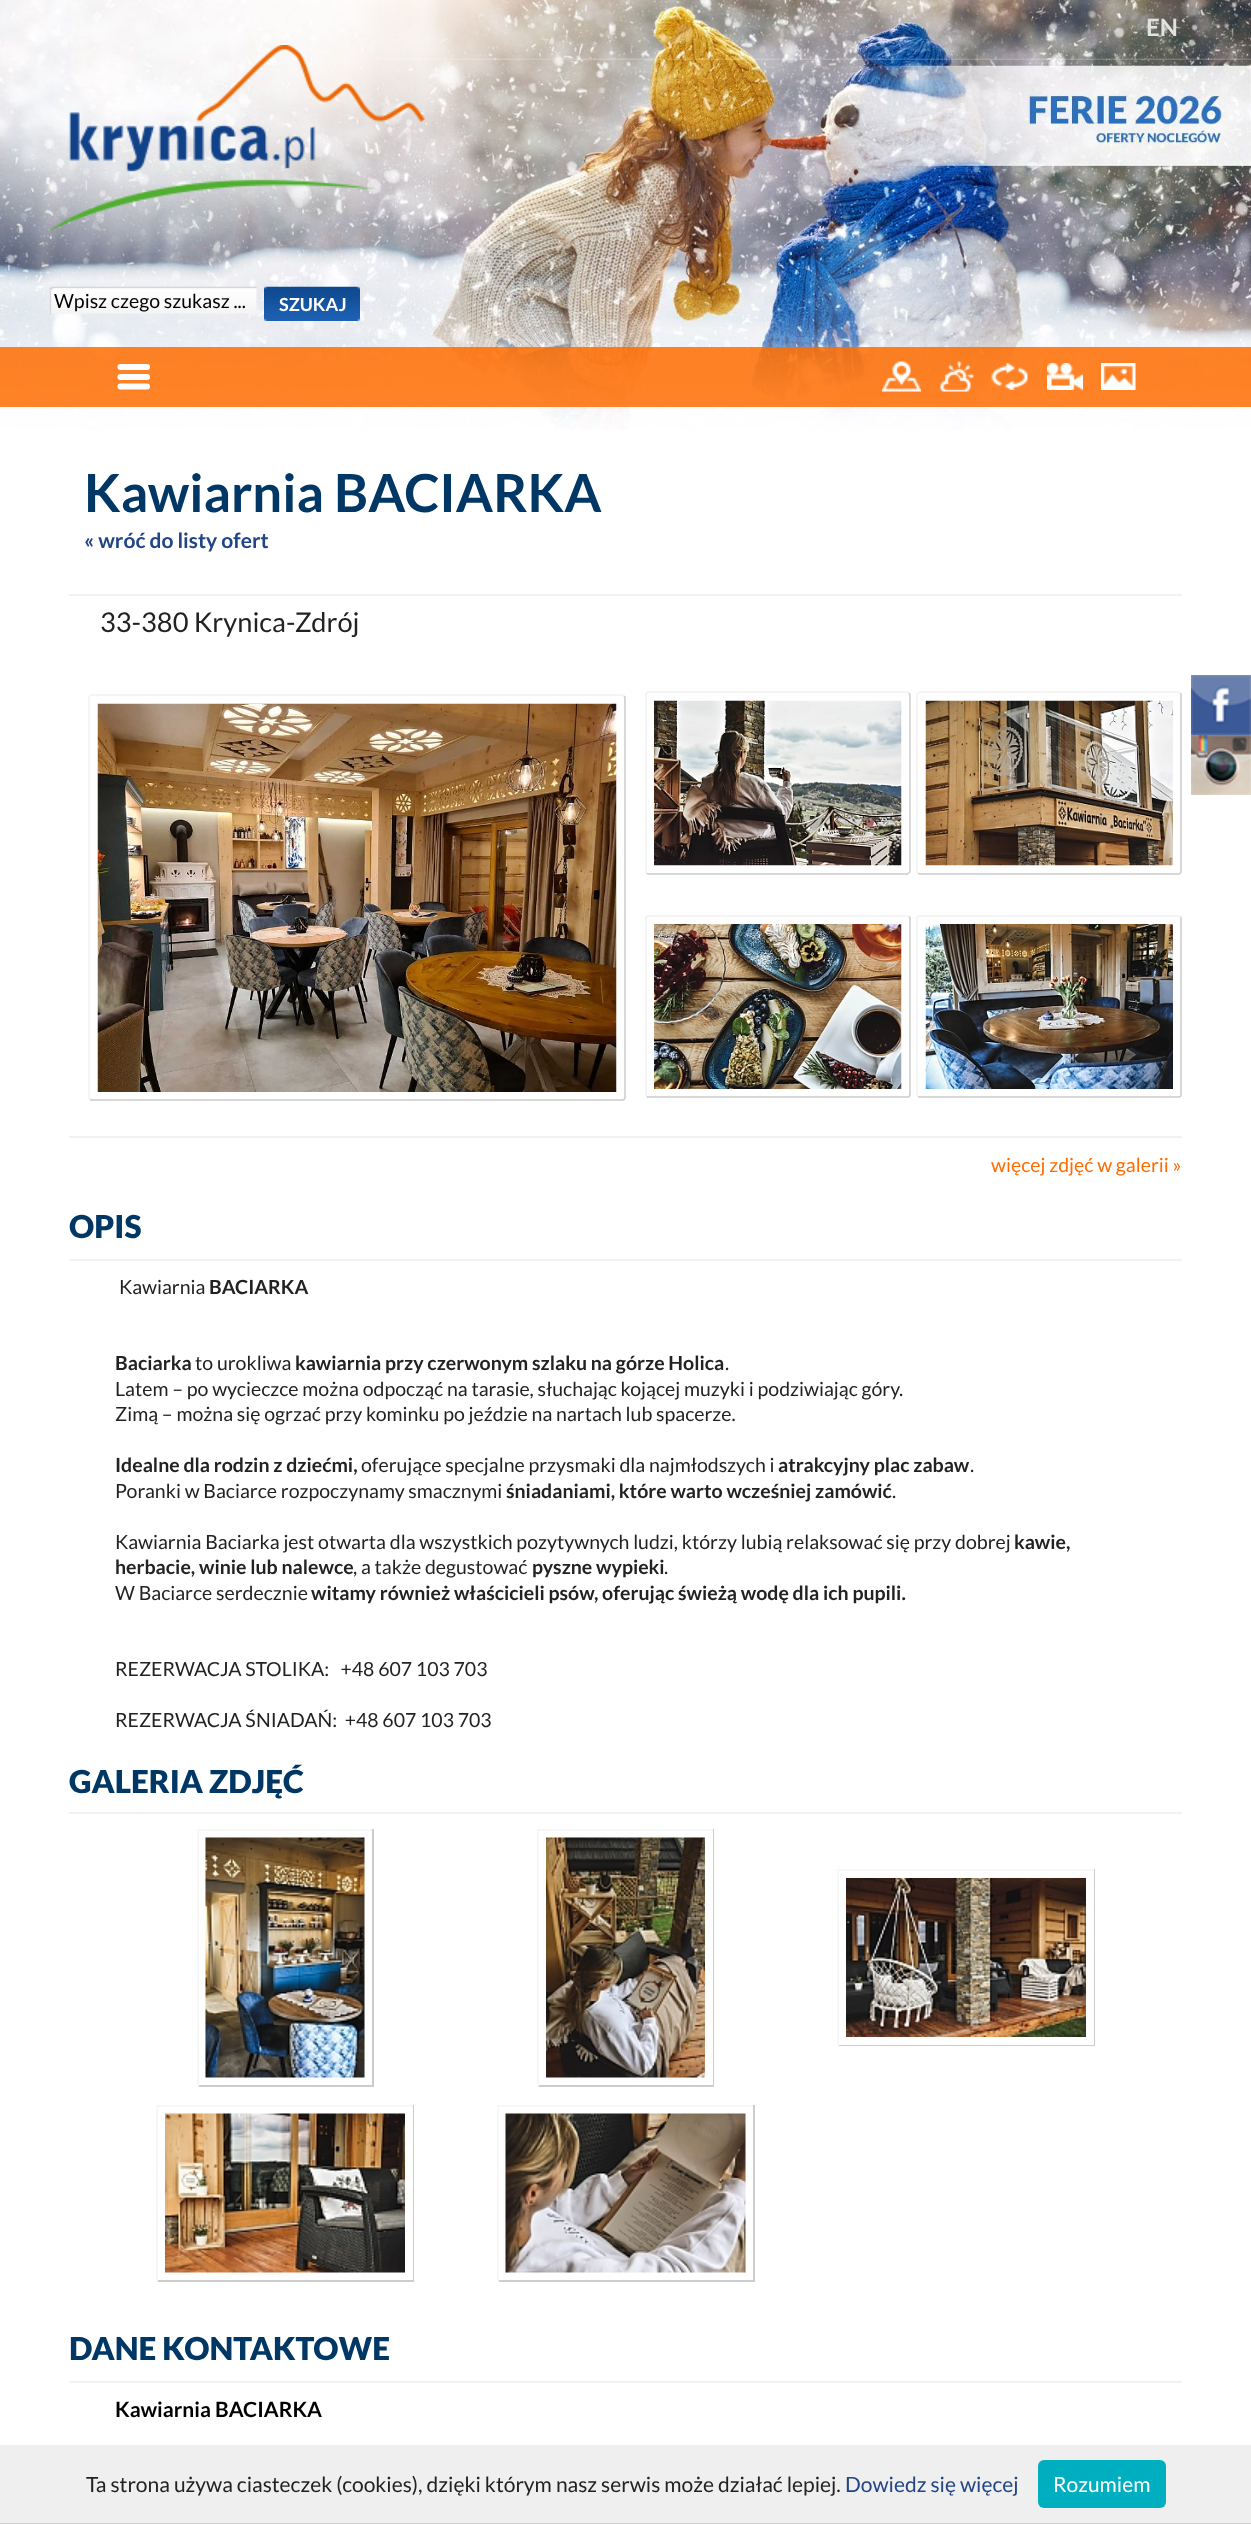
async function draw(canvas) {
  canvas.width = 1251
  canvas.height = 2524
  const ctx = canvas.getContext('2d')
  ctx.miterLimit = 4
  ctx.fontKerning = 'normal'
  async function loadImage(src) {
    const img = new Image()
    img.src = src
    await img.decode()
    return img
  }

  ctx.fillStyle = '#fff'
  ctx.fillRect(0, 0, 1251, 2524)
  ctx.drawImage(await loadImage('image0.png'), 0, 0, 1251, 430)
  ctx.drawImage(await loadImage('image1.png'), 372, 58, 879, 2)
  ctx.font = 'bold 24px Lato'
  ctx.fillStyle = '#e1e1e0'
  ctx.fillText('EN', 1146, 36)
  ctx.drawImage(await loadImage('image2.png'), 49, 45, 376, 186)
  ctx.drawImage(await loadImage('image3.png'), 49, 286, 208, 28)
  ctx.font = '19.5px Lato'
  ctx.fillStyle = '#000'
  ctx.fillText('Wpisz czego szukasz ...', 54, 308)
  ctx.drawImage(await loadImage('image4.png'), 264, 286, 96, 35)
  ctx.font = 'bold 18px Lato'
  ctx.fillStyle = '#fff'
  ctx.fillText('SZUKAJ', 279, 311)
  ctx.fillStyle = '#ff6c00d9'
  ctx.fillRect(0, 347, 1251, 60)
  ctx.beginPath()
  ctx.moveTo(120.5, 367)
  ctx.lineTo(147, 367)
  ctx.moveTo(120.5, 377)
  ctx.lineTo(147, 377)
  ctx.moveTo(120.5, 386.5)
  ctx.lineTo(147, 386.5)
  ctx.strokeStyle = '#fff'
  ctx.lineWidth = 6.1
  ctx.lineCap = 'round'
  ctx.stroke()
  ctx.drawImage(await loadImage('image5.png'), 882, 361, 39, 31)
  ctx.drawImage(await loadImage('image6.png'), 940, 361, 34, 31)
  ctx.drawImage(await loadImage('image7.png'), 991, 363, 37, 27)
  ctx.drawImage(await loadImage('image8.png'), 1047, 363, 36, 27)
  ctx.drawImage(await loadImage('image9.png'), 1101, 363, 35, 27)
  ctx.font = 'bold 52.5px Lato'
  ctx.fillStyle = '#003765'
  ctx.fillText('Kawiarnia BACIARKA', 84, 512)
  ctx.font = 'bold 21px Lato'
  ctx.fillStyle = '#214585'
  ctx.fillText('« wróć do listy ofert', 84, 548)
  ctx.fillStyle = '#f2f2f2'
  ctx.fillRect(69, 594, 1113, 2)
  ctx.font = '27.25px Lato'
  ctx.fillStyle = '#222'
  ctx.fillText('33-380 Krynica-Zdrój', 100, 632)
  ctx.beginPath()
  ctx.moveTo(624, 696)
  ctx.lineTo(625, 697.5)
  ctx.lineTo(625, 1098)
  ctx.lineTo(624, 1099.5)
  ctx.lineTo(622.5, 1100)
  ctx.lineTo(91.5, 1100)
  ctx.lineTo(90, 1099.5)
  ctx.strokeStyle = '#ccc'
  ctx.lineWidth = 1.5
  ctx.lineCap = 'butt'
  ctx.stroke()
  ctx.beginPath()
  ctx.moveTo(90, 1099.5)
  ctx.lineTo(89, 1098)
  ctx.lineTo(89, 697.5)
  ctx.lineTo(90, 696)
  ctx.lineTo(91.5, 695)
  ctx.lineTo(622.5, 695)
  ctx.lineTo(624, 696)
  ctx.strokeStyle = '#f2f2f2'
  ctx.stroke()
  ctx.drawImage(await loadImage('image10.png'), 97, 703, 520, 389)
  ctx.beginPath()
  ctx.moveTo(909, 693)
  ctx.lineTo(910, 694.5)
  ctx.lineTo(910, 871.5)
  ctx.lineTo(909, 873)
  ctx.lineTo(907.5, 874)
  ctx.lineTo(648, 874)
  ctx.lineTo(646.5, 873)
  ctx.strokeStyle = '#ccc'
  ctx.stroke()
  ctx.beginPath()
  ctx.moveTo(646.5, 873)
  ctx.lineTo(646, 871.5)
  ctx.lineTo(646, 694.5)
  ctx.lineTo(646.5, 693)
  ctx.lineTo(648, 692)
  ctx.lineTo(907.5, 692)
  ctx.lineTo(909, 693)
  ctx.strokeStyle = '#f2f2f2'
  ctx.stroke()
  ctx.drawImage(await loadImage('image11.png'), 654, 700, 248, 166)
  ctx.beginPath()
  ctx.moveTo(1180.5, 693)
  ctx.lineTo(1181, 694.5)
  ctx.lineTo(1181, 871.5)
  ctx.lineTo(1180.5, 873)
  ctx.lineTo(1179, 874)
  ctx.lineTo(919.5, 874)
  ctx.lineTo(918, 873)
  ctx.strokeStyle = '#ccc'
  ctx.stroke()
  ctx.beginPath()
  ctx.moveTo(918, 873)
  ctx.lineTo(917, 871.5)
  ctx.lineTo(917, 694.5)
  ctx.lineTo(918, 693)
  ctx.lineTo(919.5, 692)
  ctx.lineTo(1179, 692)
  ctx.lineTo(1180.5, 693)
  ctx.strokeStyle = '#f2f2f2'
  ctx.stroke()
  ctx.drawImage(await loadImage('image12.png'), 925, 700, 248, 166)
  ctx.beginPath()
  ctx.moveTo(909, 916.5)
  ctx.lineTo(910, 918)
  ctx.lineTo(910, 1095)
  ctx.lineTo(909, 1096.5)
  ctx.lineTo(907.5, 1097)
  ctx.lineTo(648, 1097)
  ctx.lineTo(646.5, 1096.5)
  ctx.strokeStyle = '#ccc'
  ctx.stroke()
  ctx.beginPath()
  ctx.moveTo(646.5, 1096.5)
  ctx.lineTo(646, 1095)
  ctx.lineTo(646, 918)
  ctx.lineTo(646.5, 916.5)
  ctx.lineTo(648, 916)
  ctx.lineTo(907.5, 916)
  ctx.lineTo(909, 916.5)
  ctx.strokeStyle = '#f2f2f2'
  ctx.stroke()
  ctx.drawImage(await loadImage('image13.png'), 654, 924, 248, 165)
  ctx.beginPath()
  ctx.moveTo(1180.5, 916.5)
  ctx.lineTo(1181, 918)
  ctx.lineTo(1181, 1095)
  ctx.lineTo(1180.5, 1096.5)
  ctx.lineTo(1179, 1097)
  ctx.lineTo(919.5, 1097)
  ctx.lineTo(918, 1096.5)
  ctx.strokeStyle = '#ccc'
  ctx.stroke()
  ctx.beginPath()
  ctx.moveTo(918, 1096.5)
  ctx.lineTo(917, 1095)
  ctx.lineTo(917, 918)
  ctx.lineTo(918, 916.5)
  ctx.lineTo(919.5, 916)
  ctx.lineTo(1179, 916)
  ctx.lineTo(1180.5, 916.5)
  ctx.strokeStyle = '#f2f2f2'
  ctx.stroke()
  ctx.drawImage(await loadImage('image14.png'), 925, 924, 248, 165)
  ctx.fillStyle = '#f2f2f2'
  ctx.fillRect(69, 1136, 1113, 2)
  ctx.font = '19.5px Lato'
  ctx.fillStyle = '#ff6c00'
  ctx.fillText('więcej zdjęć w galerii »', 991, 1172)
  ctx.font = '900 31.5px Lato'
  ctx.fillStyle = '#003765'
  ctx.fillText('OPIS', 69, 1238)
  ctx.fillStyle = '#f2f2f2'
  ctx.fillRect(69, 1259, 1113, 2)
  ctx.font = '19.5px Lato'
  ctx.fillStyle = '#222'
  ctx.fillText('Kawiarnia', 119, 1294)
  ctx.font = 'bold 19.5px Lato'
  ctx.fillText('BACIARKA', 209, 1294)
  ctx.fillText('Baciarka', 115, 1370)
  ctx.font = '19.5px Lato'
  ctx.fillText('to urokliwa', 195, 1370)
  ctx.font = 'bold 19.5px Lato'
  ctx.fillText('kawiarnia przy czerwonym szlaku na górze Holica', 295, 1370)
  ctx.font = '19.5px Lato'
  ctx.fillText('.', 725, 1370)
  ctx.fillText('Latem – po wycieczce można odpocząć na tarasie, słuchając kojącej muzyki i podziwiając góry.', 115, 1396)
  ctx.fillText('Zimą – można się ogrzać przy kominku po jeździe na nartach lub spacerze.', 115, 1421)
  ctx.font = 'bold 19.5px Lato'
  ctx.fillText('Idealne dla rodzin z dziećmi,', 115, 1472)
  ctx.font = '19.5px Lato'
  ctx.fillText('oferujące specjalne przysmaki dla najmłodszych i', 361, 1472)
  ctx.font = 'bold 19.5px Lato'
  ctx.fillText('atrakcyjny plac zabaw', 778, 1472)
  ctx.font = '19.5px Lato'
  ctx.fillText('.', 970, 1472)
  ctx.fillText('Poranki w Baciarce rozpoczynamy smacznymi', 115, 1498)
  ctx.font = 'bold 19.5px Lato'
  ctx.fillText('śniadaniami, które warto wcześniej zamówić', 506, 1498)
  ctx.font = '19.5px Lato'
  ctx.fillText('.', 892, 1498)
  ctx.fillText('Kawiarnia Baciarka jest otwarta dla wszystkich pozytywnych ludzi, którzy lubią relaksować się przy dobrej', 115, 1549)
  ctx.font = 'bold 19.5px Lato'
  ctx.fillText('kawie,', 1014, 1549)
  ctx.fillText('herbacie, winie lub nalewce', 115, 1574)
  ctx.font = '19.5px Lato'
  ctx.fillText(', a także degustować', 353, 1574)
  ctx.font = 'bold 19.5px Lato'
  ctx.fillText('pyszne wypieki', 532, 1574)
  ctx.font = '19.5px Lato'
  ctx.fillText('.', 664, 1574)
  ctx.fillText('W Baciarce serdecznie', 115, 1600)
  ctx.font = 'bold 19.5px Lato'
  ctx.fillText('witamy również właścicieli psów, oferując świeżą wodę dla ich pupili.', 311, 1600)
  ctx.font = '19.5px Lato'
  ctx.fillText('REZERWACJA STOLIKA:   +48 607 103 703', 115, 1676)
  ctx.fillText('REZERWACJA ŚNIADAŃ:  +48 607 103 703', 115, 1727)
  ctx.font = '900 31.5px Lato'
  ctx.fillStyle = '#003765'
  ctx.fillText('GALERIA ZDJĘĆ', 69, 1793)
  ctx.fillStyle = '#f2f2f2'
  ctx.fillRect(69, 1812, 1113, 2)
  ctx.fillStyle = '#f7f7f7'
  ctx.fillRect(197, 1829, 177, 2)
  ctx.fillStyle = '#ccc'
  ctx.fillRect(372, 1829, 2, 258)
  ctx.fillStyle = '#cdcdcd'
  ctx.fillRect(197, 2085, 177, 2)
  ctx.fillStyle = '#f7f7f7'
  ctx.fillRect(197, 1829, 2, 258)
  ctx.drawImage(await loadImage('image15.png'), 205, 1837, 160, 241)
  ctx.fillRect(537, 1829, 177, 2)
  ctx.fillStyle = '#ccc'
  ctx.fillRect(713, 1829, 1, 258)
  ctx.fillStyle = '#cdcdcd'
  ctx.fillRect(537, 2085, 177, 2)
  ctx.fillStyle = '#f7f7f7'
  ctx.fillRect(537, 1829, 2, 258)
  ctx.drawImage(await loadImage('image16.png'), 546, 1837, 159, 241)
  ctx.fillRect(837, 1869, 258, 2)
  ctx.fillStyle = '#ccc'
  ctx.fillRect(1094, 1869, 1, 177)
  ctx.fillStyle = '#cdcdcd'
  ctx.fillRect(837, 2045, 258, 1)
  ctx.fillStyle = '#f7f7f7'
  ctx.fillRect(837, 1869, 2, 177)
  ctx.drawImage(await loadImage('image17.png'), 846, 1878, 240, 159)
  ctx.fillRect(156, 2105, 258, 2)
  ctx.fillStyle = '#ccc'
  ctx.fillRect(413, 2105, 1, 177)
  ctx.fillStyle = '#cdcdcd'
  ctx.fillRect(156, 2280, 258, 2)
  ctx.fillStyle = '#f7f7f7'
  ctx.fillRect(156, 2105, 2, 177)
  ctx.drawImage(await loadImage('image18.png'), 165, 2113, 240, 160)
  ctx.fillRect(497, 2105, 258, 2)
  ctx.fillStyle = '#ccc'
  ctx.fillRect(753, 2105, 2, 177)
  ctx.fillStyle = '#cdcdcd'
  ctx.fillRect(497, 2280, 258, 2)
  ctx.fillStyle = '#f7f7f7'
  ctx.fillRect(497, 2105, 2, 177)
  ctx.drawImage(await loadImage('image19.png'), 505, 2113, 241, 160)
  ctx.fillStyle = '#003765'
  ctx.fillText('DANE KONTAKTOWE', 69, 2360)
  ctx.fillStyle = '#f2f2f2'
  ctx.fillRect(69, 2381, 1113, 2)
  ctx.font = 'bold 21px Lato'
  ctx.fillStyle = '#000'
  ctx.fillText('Kawiarnia BACIARKA', 115, 2417)
  ctx.drawImage(await loadImage('image20.png'), 1191, 675, 60, 60)
  ctx.drawImage(await loadImage('image21.png'), 1191, 735, 60, 60)
  ctx.fillStyle = '#efefef'
  ctx.fillRect(0, 2445, 1251, 78)
  ctx.fillStyle = '#d3d0d0'
  ctx.fillRect(0, 2523, 1251, 1)
  ctx.font = '21px Lato'
  ctx.fillStyle = '#222'
  ctx.fillText('Ta strona używa ciasteczek (cookies), dzięki którym nasz serwis może działać lepiej.', 86, 2492)
  ctx.fillStyle = '#214585'
  ctx.fillText('Dowiedz się więcej', 845, 2492)
  ctx.fillStyle = '#00afbf'
  ctx.beginPath()
  ctx.roundRect(1038, 2460, 128, 48, 6)
  ctx.fill()
  ctx.fillStyle = '#fff'
  ctx.fillText('Rozumiem', 1053, 2492)
}

draw(document.querySelector('canvas'))
